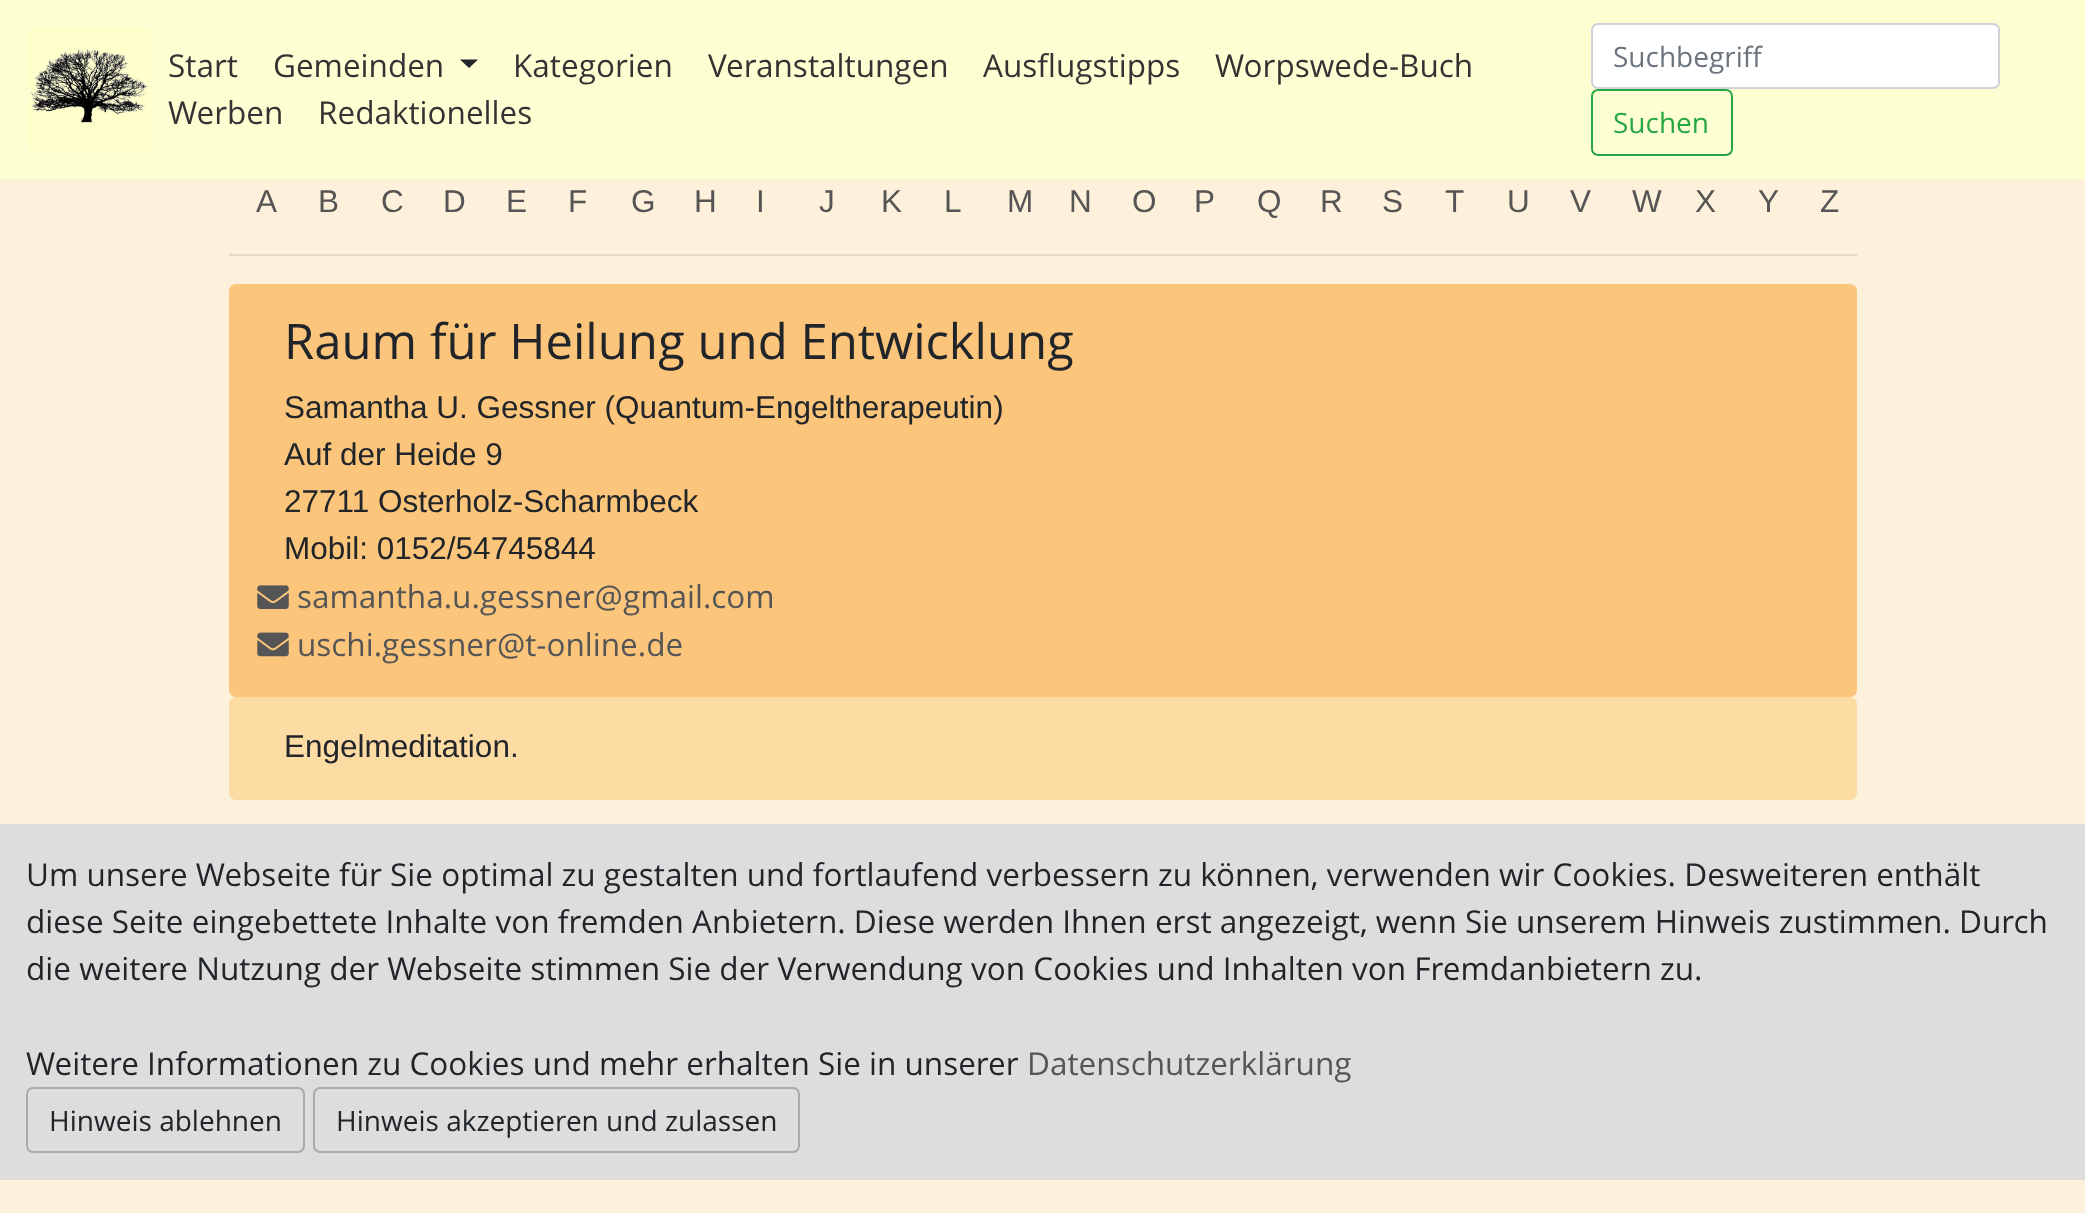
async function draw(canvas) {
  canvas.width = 2085
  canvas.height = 1213
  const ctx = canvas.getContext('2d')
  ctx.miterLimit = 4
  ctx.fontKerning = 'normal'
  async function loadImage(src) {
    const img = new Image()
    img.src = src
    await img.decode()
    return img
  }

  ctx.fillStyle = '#fef1db'
  ctx.fillRect(0, 0, 2085, 1213)
  ctx.fillStyle = '#fefed3'
  ctx.fillRect(0, 0, 2085, 179)
  ctx.drawImage(await loadImage('image0.png'), 28, 28, 123, 123)
  ctx.font = '31.5px Open Sans'
  ctx.fillStyle = '#333'
  ctx.fillText('Start', 168, 77)
  ctx.fillText('Gemeinden', 273, 77)
  ctx.fillStyle = '#212529'
  ctx.beginPath()
  ctx.moveTo(460, 59.5)
  ctx.lineTo(478, 59.5)
  ctx.lineTo(469, 68)
  ctx.closePath()
  ctx.fill()
  ctx.fillStyle = '#333'
  ctx.fillText('Kategorien', 513, 77)
  ctx.fillText('Veranstaltungen', 708, 77)
  ctx.fillText('Ausflugstipps', 983, 77)
  ctx.fillText('Worpswede-Buch', 1215, 77)
  ctx.fillText('Werben', 168, 124)
  ctx.fillText('Redaktionelles', 318, 124)
  ctx.fillStyle = '#fff'
  ctx.beginPath()
  ctx.roundRect(1592, 24, 407, 64, 6)
  ctx.fill()
  ctx.strokeStyle = '#ced4da'
  ctx.lineWidth = 2
  ctx.stroke()
  ctx.font = '28px Open Sans'
  ctx.fillStyle = '#6c757d'
  ctx.fillText('Suchbegriff', 1613, 67)
  ctx.beginPath()
  ctx.roundRect(1592, 90, 140, 65, 6)
  ctx.strokeStyle = '#28a745'
  ctx.stroke()
  ctx.fillStyle = '#28a745'
  ctx.fillText('Suchen', 1613, 133)
  ctx.font = '31.5px Liberation Sans'
  ctx.fillStyle = '#555'
  ctx.fillText('A', 256, 212)
  ctx.fillText('B', 318, 212)
  ctx.fillText('C', 381, 212)
  ctx.fillText('D', 443, 212)
  ctx.fillText('E', 506, 212)
  ctx.fillText('F', 568, 212)
  ctx.fillText('G', 631, 212)
  ctx.fillText('H', 694, 212)
  ctx.fillText('I', 756, 212)
  ctx.fillText('J', 819, 212)
  ctx.fillText('K', 881, 212)
  ctx.fillText('L', 944, 212)
  ctx.fillText('M', 1007, 212)
  ctx.fillText('N', 1069, 212)
  ctx.fillText('O', 1132, 212)
  ctx.fillText('P', 1194, 212)
  ctx.fillText('Q', 1257, 212)
  ctx.fillText('R', 1320, 212)
  ctx.fillText('S', 1382, 212)
  ctx.fillText('T', 1445, 212)
  ctx.fillText('U', 1507, 212)
  ctx.fillText('V', 1570, 212)
  ctx.fillText('W', 1632, 212)
  ctx.fillText('X', 1695, 212)
  ctx.fillText('Y', 1758, 212)
  ctx.fillText('Z', 1820, 212)
  ctx.fillStyle = '#e5d9c5'
  ctx.fillRect(229, 254, 1628, 2)
  ctx.fillStyle = '#fbc57b'
  ctx.beginPath()
  ctx.roundRect(229, 284, 1628, 413, 7)
  ctx.fill()
  ctx.font = '49px Open Sans'
  ctx.fillStyle = '#212529'
  ctx.fillText('Raum für Heilung und Entwicklung', 284, 359)
  ctx.font = '31.5px Liberation Sans'
  ctx.fillText('Samantha U. Gessner (Quantum-Engeltherapeutin)', 284, 418)
  ctx.fillText('Auf der Heide 9', 284, 465)
  ctx.fillText('27711 Osterholz-Scharmbeck', 284, 512)
  ctx.fillText('Mobil: 0152/54745844', 284, 559)
  ctx.drawImage(await loadImage('image1.png'), 257, 585, 32, 24)
  ctx.font = '31.5px Open Sans'
  ctx.fillStyle = '#555'
  ctx.fillText('samantha.u.gessner@gmail.com', 297, 608)
  ctx.drawImage(await loadImage('image2.png'), 257, 632, 32, 25)
  ctx.fillText('uschi.gessner@t-online.de', 297, 656)
  ctx.fillStyle = '#fcdca3'
  ctx.beginPath()
  ctx.roundRect(229, 697, 1628, 103, 7)
  ctx.fill()
  ctx.font = '31.5px Liberation Sans'
  ctx.fillStyle = '#212529'
  ctx.fillText('Engelmeditation.', 284, 757)
  ctx.fillStyle = '#ddd'
  ctx.fillRect(0, 824, 2085, 356)
  ctx.font = '31.5px Open Sans'
  ctx.fillStyle = '#212529'
  ctx.fillText('Um unsere Webseite für Sie optimal zu gestalten und fortlaufend verbessern zu können, verwenden wir Cookies. Desweiteren enthält', 26, 886)
  ctx.fillText('diese Seite eingebettete Inhalte von fremden Anbietern. Diese werden Ihnen erst angezeigt, wenn Sie unserem Hinweis zustimmen. Durch', 26, 933)
  ctx.fillText('die weitere Nutzung der Webseite stimmen Sie der Verwendung von Cookies und Inhalten von Fremdanbietern zu.', 26, 980)
  ctx.fillText('Weitere Informationen zu Cookies und mehr erhalten Sie in unserer', 26, 1075)
  ctx.fillStyle = '#555'
  ctx.fillText('Datenschutzerklärung', 1027, 1075)
  ctx.beginPath()
  ctx.roundRect(27, 1088, 277, 64, 6)
  ctx.strokeStyle = '#aaa'
  ctx.stroke()
  ctx.font = '28px Open Sans'
  ctx.fillStyle = '#212529'
  ctx.fillText('Hinweis ablehnen', 49, 1131)
  ctx.beginPath()
  ctx.roundRect(314, 1088, 485, 64, 6)
  ctx.stroke()
  ctx.fillText('Hinweis akzeptieren und zulassen', 336, 1131)
}

draw(document.querySelector('canvas'))
